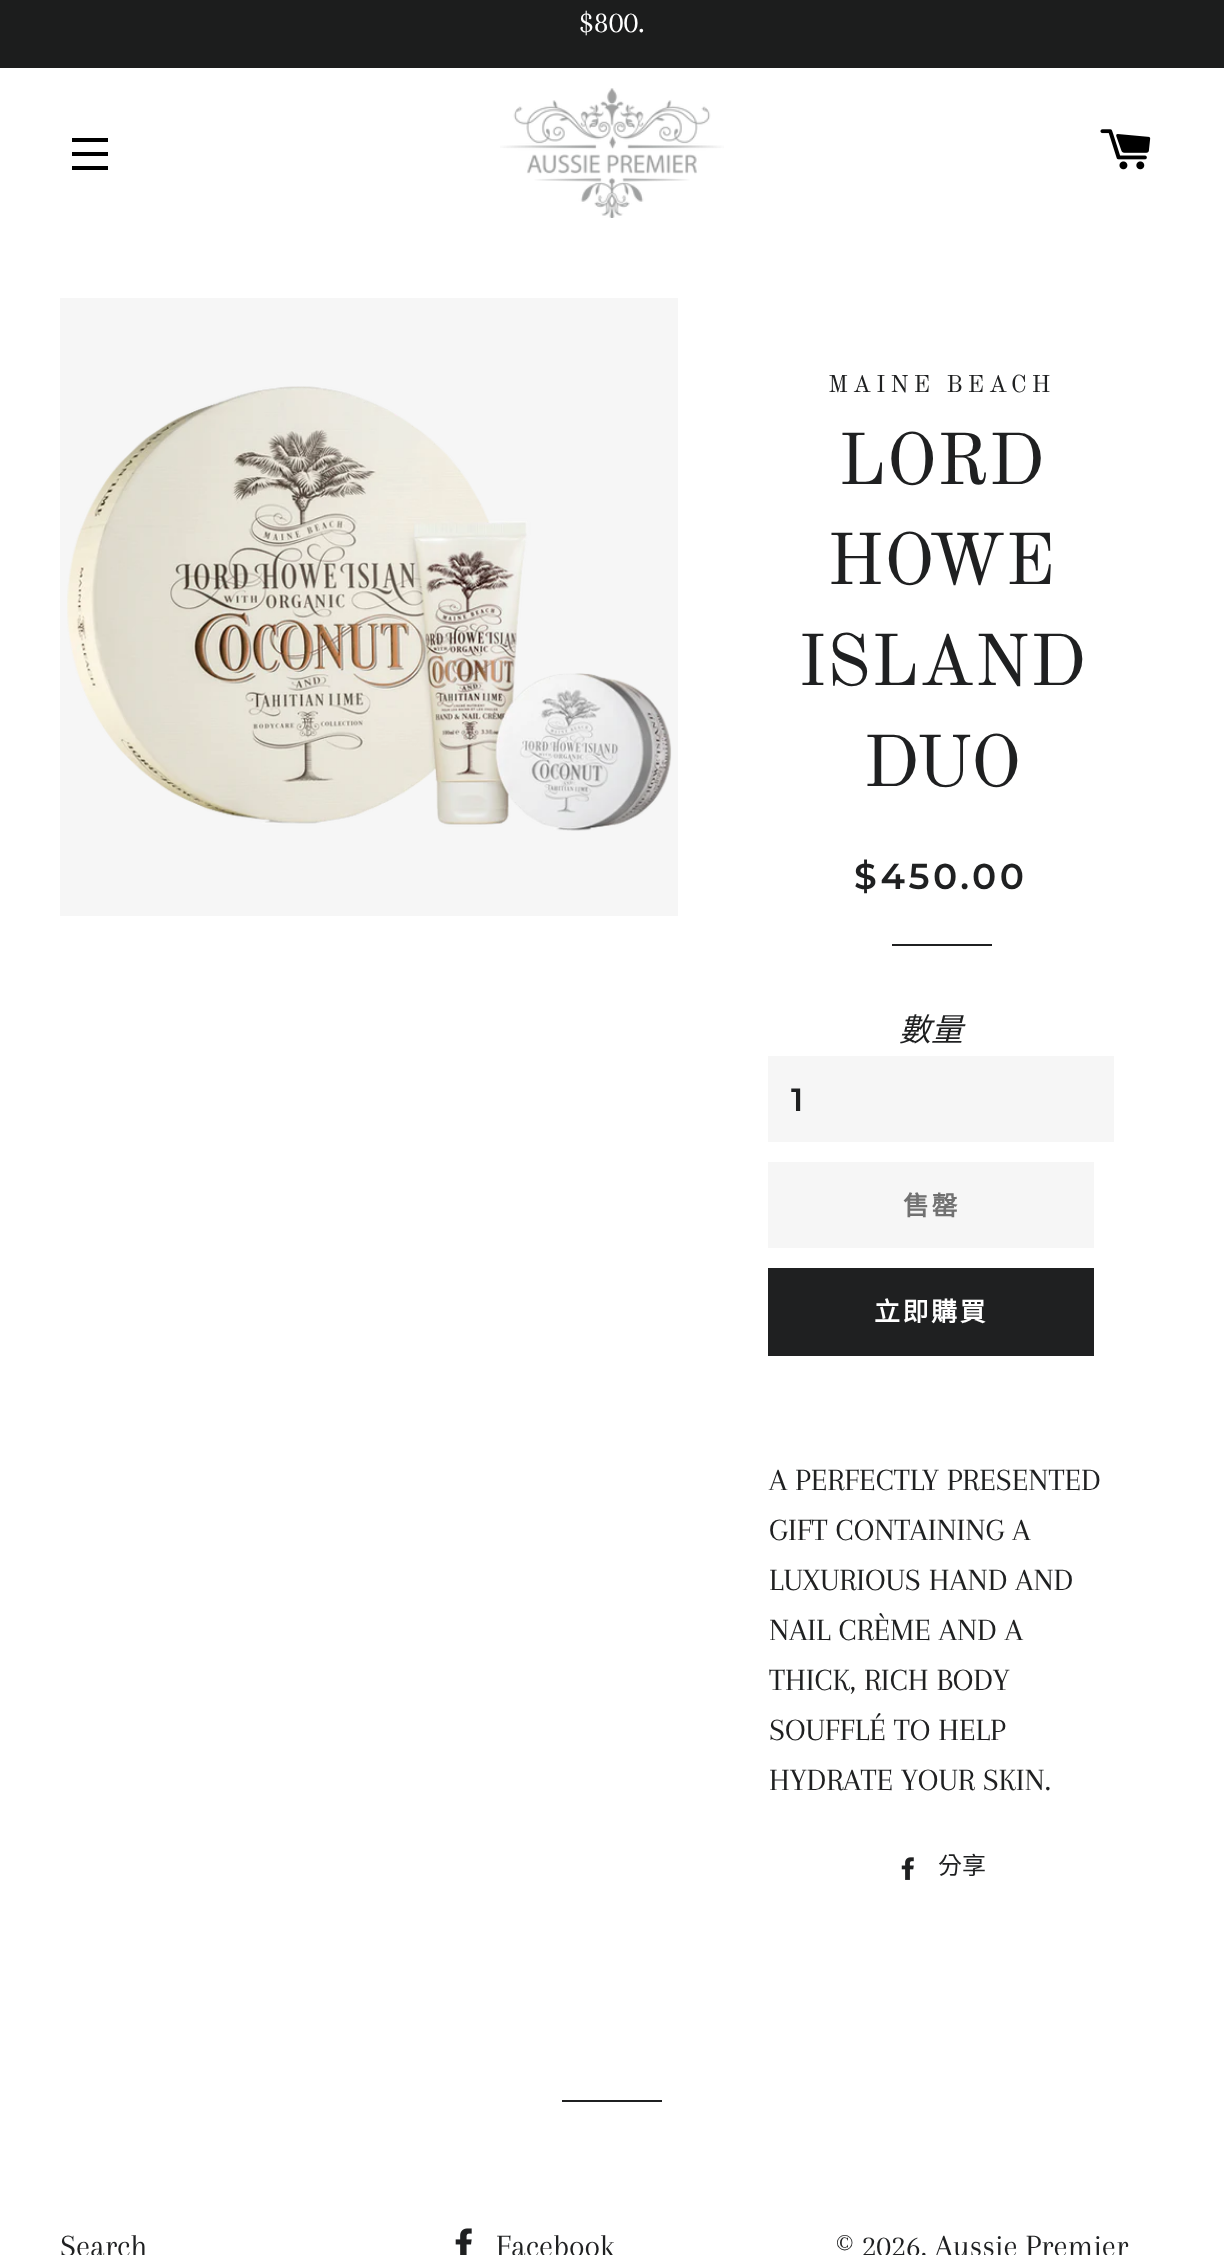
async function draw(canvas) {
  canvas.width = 1224
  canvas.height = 2255
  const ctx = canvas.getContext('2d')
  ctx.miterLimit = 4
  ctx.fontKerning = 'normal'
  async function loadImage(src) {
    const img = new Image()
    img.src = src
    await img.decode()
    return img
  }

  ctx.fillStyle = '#fff'
  ctx.fillRect(0, 0, 1224, 2255)
  ctx.fillStyle = '#1c1d1d'
  ctx.fillRect(0, 0, 1224, 68)
  ctx.font = '32px Arapey'
  ctx.fillStyle = '#fff'
  ctx.fillText('$800.', 579, 32)
  ctx.fillStyle = '#000'
  ctx.fillRect(72, 138, 36, 4)
  ctx.fillRect(72, 152, 36, 4)
  ctx.fillRect(72, 166, 36, 4)
  ctx.drawImage(await loadImage('image0.png'), 500, 88, 224, 130)
  ctx.drawImage(await loadImage('image1.png'), 1100, 129, 51, 41)
  ctx.fillStyle = '#f6f6f6'
  ctx.fillRect(60, 298, 618, 618)
  ctx.drawImage(await loadImage('image2.png'), 67, 386, 605, 445)
  ctx.letterSpacing = '4.75px'
  ctx.font = '24px Old Standard TT'
  ctx.fillStyle = '#1f2021'
  ctx.fillText('MAINE BEACH', 828, 392)
  ctx.letterSpacing = '0px'
  ctx.font = '72px Old Standard TT'
  ctx.fillText('LORD', 838, 484)
  ctx.fillText('HOWE', 827, 584)
  ctx.fillText('ISLAND', 798, 685)
  ctx.fillText('DUO', 863, 786)
  ctx.letterSpacing = '3.5px'
  ctx.font = '600 36px Montserrat'
  ctx.fillText('$450.00', 854, 889)
  ctx.fillRect(892, 944, 100, 2)
  ctx.letterSpacing = '0px'
  ctx.font = 'italic 32px Noto Sans CJK TC'
  ctx.fillText('數量', 899, 1041)
  ctx.fillStyle = '#f6f6f6'
  ctx.fillRect(768, 1056, 346, 86)
  ctx.letterSpacing = '3px'
  ctx.font = '600 32px Montserrat'
  ctx.fillStyle = '#1f2021'
  ctx.fillText('1', 791, 1111)
  ctx.fillStyle = '#f6f6f6'
  ctx.fillRect(768, 1162, 326, 86)
  ctx.letterSpacing = '2.5px'
  ctx.font = 'bold 26px Noto Sans CJK TC'
  ctx.fillStyle = '#717171'
  ctx.fillText('售罄', 903, 1215)
  ctx.fillStyle = '#1f2021'
  ctx.fillRect(768, 1268, 326, 88)
  ctx.fillStyle = '#fff'
  ctx.fillText('立即購買', 874, 1321)
  ctx.letterSpacing = '0px'
  ctx.font = '32px Arapey'
  ctx.fillStyle = '#1f2021'
  ctx.fillText('A PERFECTLY PRESENTED', 769, 1490)
  ctx.fillText('GIFT CONTAINING A', 769, 1540)
  ctx.fillText('LUXURIOUS HAND AND', 769, 1590)
  ctx.fillText('NAIL CRÈME AND A', 769, 1640)
  ctx.fillText('THICK, RICH BODY', 769, 1690)
  ctx.fillText('SOUFFLÉ TO HELP', 769, 1740)
  ctx.fillText('HYDRATE YOUR SKIN.', 769, 1790)
  ctx.drawImage(await loadImage('image3.png'), 901, 1857, 13, 23)
  ctx.font = '24px Noto Sans CJK TC'
  ctx.fillText('分享', 938, 1874)
  ctx.fillRect(562, 2100, 100, 2)
  ctx.font = '32px Arapey'
  ctx.fillText('Search', 60, 2256)
  ctx.drawImage(await loadImage('image4.png'), 455, 2228, 17, 27)
  ctx.fillText('Facebook', 496, 2256)
  ctx.fillText('© 2026, Aussie Premier', 836, 2256)
}

draw(document.querySelector('canvas'))
